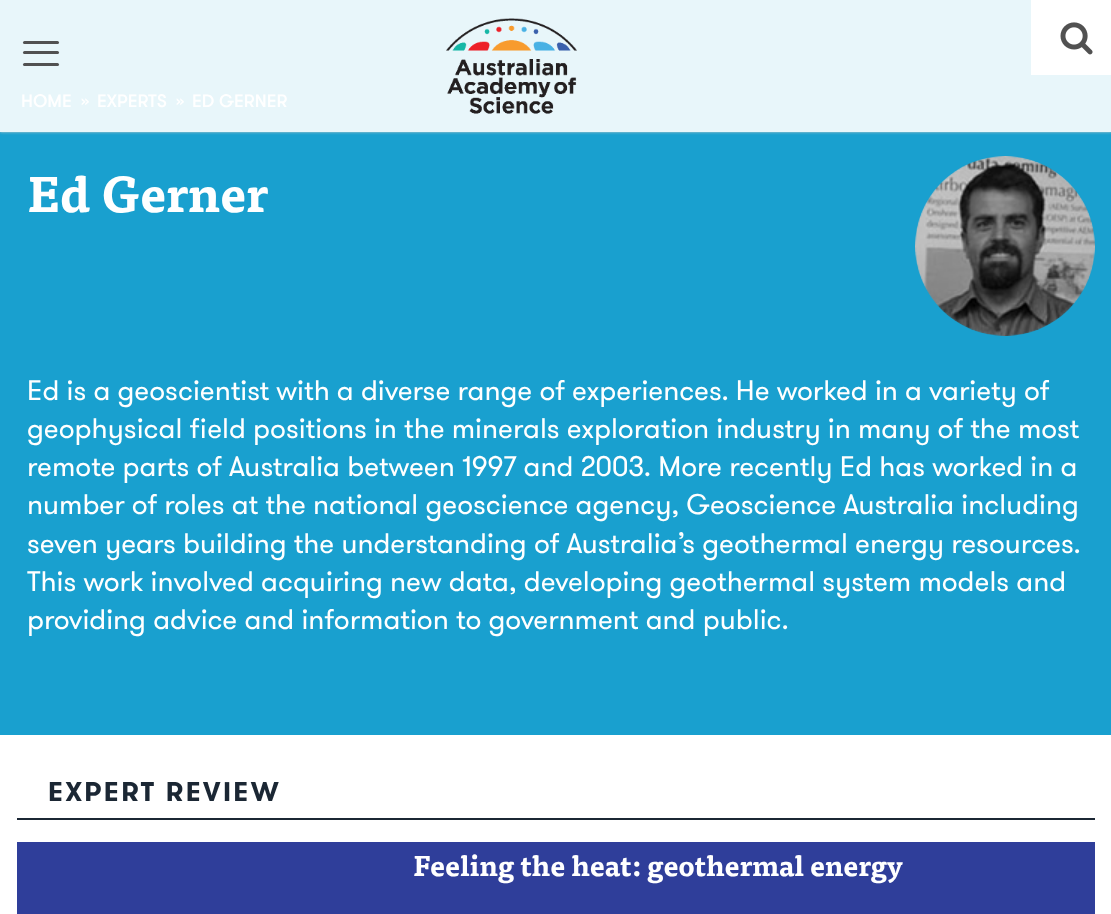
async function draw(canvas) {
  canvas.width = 1111
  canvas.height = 914
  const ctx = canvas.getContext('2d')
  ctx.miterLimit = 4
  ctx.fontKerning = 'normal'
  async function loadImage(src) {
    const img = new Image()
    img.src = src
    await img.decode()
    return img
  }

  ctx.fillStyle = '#fff'
  ctx.fillRect(0, 0, 1111, 914)
  ctx.fillStyle = '#19a0cf'
  ctx.fillRect(0, 132, 1111, 603)
  ctx.fillStyle = '#e8f6fa'
  ctx.fillRect(0, 0, 1111, 132)
  ctx.save()
  ctx.beginPath()
  ctx.rect(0, 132, 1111, 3)
  ctx.clip()
  ctx.fillStyle = '#ccc'
  ctx.filter = 'blur(1.5px)'
  ctx.beginPath()
  ctx.rect(0, 0, 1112, 132)
  ctx.fill()
  ctx.filter = 'none'
  ctx.restore()
  ctx.fillStyle = '#515151'
  ctx.beginPath()
  ctx.roundRect(23, 41, 36, 3, 1.5)
  ctx.fill()
  ctx.beginPath()
  ctx.roundRect(23, 51, 36, 3, 1.5)
  ctx.fill()
  ctx.beginPath()
  ctx.roundRect(23, 63, 36, 3, 1.5)
  ctx.fill()
  ctx.drawImage(await loadImage('image0.png'), 446, 18, 131, 96)
  ctx.fillStyle = '#fff'
  ctx.fillRect(1031, 0, 80, 75)
  ctx.drawImage(await loadImage('image1.png'), 1060, 22, 33, 33)
  ctx.font = '500 18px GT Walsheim'
  ctx.fillText('HOME', 21, 107)
  ctx.fillText('»', 81, 107)
  ctx.fillText('EXPERTS', 97, 107)
  ctx.fillText('»', 176, 107)
  ctx.fillText('ED GERNER', 192, 107)
  ctx.font = 'bold 49.5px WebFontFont'
  ctx.fillText('Ed Gerner', 27, 212)
  ctx.drawImage(await loadImage('image2.png'), 915, 156, 180, 180)
  ctx.font = '28.35px GT Walsheim'
  ctx.fillText('Ed is a geoscientist with a diverse range of experiences. He worked in a variety of', 27, 400)
  ctx.fillText('geophysical field positions in the minerals exploration industry in many of the most', 27, 438)
  ctx.fillText('remote parts of Australia between 1997 and 2003. More recently Ed has worked in a', 27, 476)
  ctx.fillText('number of roles at the national geoscience agency, Geoscience Australia including', 27, 514)
  ctx.fillText('seven years building the understanding of Australia’s geothermal energy resources.', 27, 553)
  ctx.fillText('This work involved acquiring new data, developing geothermal system models and', 27, 591)
  ctx.fillText('providing advice and information to government and public.', 27, 629)
  ctx.fillStyle = '#1b2734'
  ctx.fillRect(17, 818, 1078, 2)
  ctx.letterSpacing = '2.4px'
  ctx.font = 'bold 27px GT Walsheim'
  ctx.fillText('EXPERT REVIEW', 48, 801)
  ctx.fillStyle = '#2f3e9a'
  ctx.fillRect(17, 842, 1078, 72)
  ctx.letterSpacing = '0px'
  ctx.font = 'bold 28.4px WebFontFont'
  ctx.fillStyle = '#fff'
  ctx.fillText('Feeling the heat: geothermal energy', 413, 876)
}

draw(document.querySelector('canvas'))
